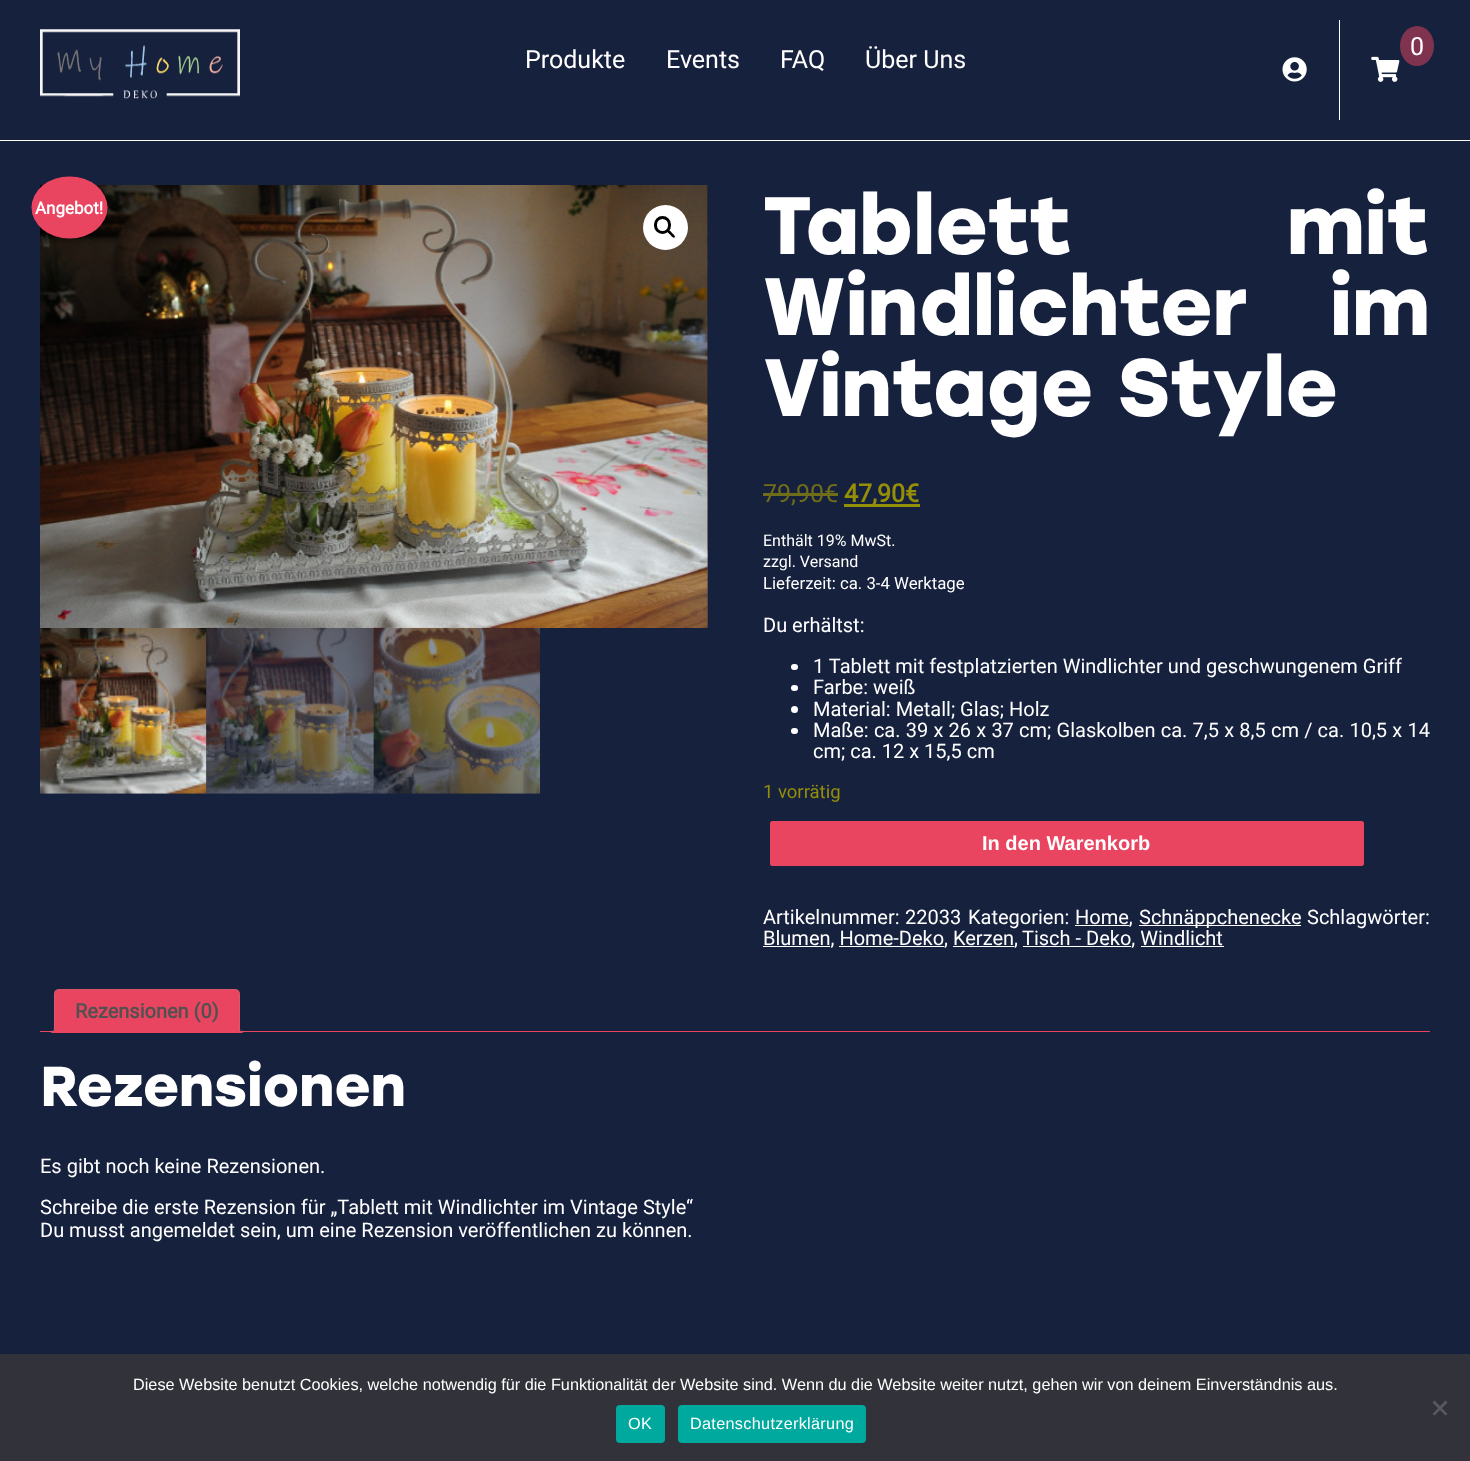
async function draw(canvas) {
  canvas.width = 1470
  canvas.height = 1461
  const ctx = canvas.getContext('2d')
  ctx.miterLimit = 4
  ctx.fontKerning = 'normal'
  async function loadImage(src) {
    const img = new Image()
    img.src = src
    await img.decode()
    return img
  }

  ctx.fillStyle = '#16213e'
  ctx.fillRect(0, 0, 1470, 1461)
  ctx.fillStyle = '#fff'
  ctx.fillRect(0, 140, 1470, 1)
  ctx.drawImage(await loadImage('image0.png'), 40, 29, 200, 70)
  ctx.font = '25px Roboto'
  ctx.fillText('Produkte', 525, 68)
  ctx.fillText('Events', 666, 68)
  ctx.fillText('FAQ', 780, 68)
  ctx.fillText('Über Uns', 865, 68)
  ctx.fillRect(1339, 20, 1, 100)
  ctx.drawImage(await loadImage('image1.png'), 1282, 57, 25, 25)
  ctx.fillStyle = '#80334f'
  ctx.beginPath()
  ctx.ellipse(1417, 46, 17, 20, 0, 0, 2 * Math.PI)
  ctx.fill()
  ctx.fillStyle = '#fff'
  ctx.fillText('0', 1410, 55)
  ctx.drawImage(await loadImage('image2.png'), 1371, 56, 29, 26)
  ctx.drawImage(await loadImage('image4.png'), 707, 185, 1, 443)
  ctx.drawImage(await loadImage('image3.png'), 40, 185, 668, 443)
  ctx.beginPath()
  ctx.arc(665.5, 227.5, 22.5, 0, 2 * Math.PI)
  ctx.fill()
  ctx.beginPath()
  ctx.roundRect(655.5, 217.5, 14, 15, 7)
  ctx.strokeStyle = '#000'
  ctx.lineWidth = 3
  ctx.stroke()
  ctx.fillStyle = '#000'
  ctx.beginPath()
  ctx.moveTo(667.5, 230)
  ctx.bezierCurveTo(669, 229, 671, 232, 672, 233)
  ctx.bezierCurveTo(672.5, 233.5, 676, 236, 674.5, 237.5)
  ctx.bezierCurveTo(673, 238.5, 671, 235.5, 670, 234.5)
  ctx.bezierCurveTo(669.5, 234, 666, 231.5, 667.5, 230)
  ctx.closePath()
  ctx.fill()
  ctx.drawImage(await loadImage('image5.png'), 40, 628, 167, 166)
  ctx.drawImage(await loadImage('image6.png'), 206, 627, 168, 167)
  ctx.drawImage(await loadImage('image7.png'), 373, 627, 167, 167)
  ctx.wordSpacing = '190px'
  ctx.font = 'bold 81.25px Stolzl'
  ctx.fillStyle = '#fff'
  ctx.fillText('Tablett mit', 763, 254)
  ctx.wordSpacing = '58px'
  ctx.fillText('Windlichter im', 763, 335)
  ctx.wordSpacing = '0px'
  ctx.fillText('Vintage Style', 763, 416)
  ctx.font = '25px Roboto'
  ctx.fillStyle = '#6f6d19'
  ctx.fillText('79,90€', 763, 502)
  ctx.fillRect(763, 493, 75, 3)
  ctx.fillStyle = '#958e09'
  ctx.fillRect(844, 504, 76, 3)
  ctx.font = 'bold 25px Roboto'
  ctx.fillText('47,90€', 844, 502)
  ctx.font = '16px Roboto'
  ctx.fillStyle = '#fff'
  ctx.fillText('Enthält 19% MwSt.', 763, 546)
  ctx.fillText('zzgl. Versand', 763, 567)
  ctx.font = '16.75px Roboto'
  ctx.fillText('Lieferzeit: ca. 3-4 Werktage', 763, 589)
  ctx.font = '20px Roboto'
  ctx.fillText('Du erhältst:', 763, 632)
  ctx.beginPath()
  ctx.roundRect(791, 664, 7, 6, 3)
  ctx.fill()
  ctx.fillText('1 Tablett mit festplatzierten Windlichter und geschwungenem Griff', 813, 673)
  ctx.beginPath()
  ctx.roundRect(791, 685, 7, 6, 3)
  ctx.fill()
  ctx.fillText('Farbe: weiß', 813, 694)
  ctx.beginPath()
  ctx.arc(794.5, 709.5, 3.5, 0, 2 * Math.PI)
  ctx.fill()
  ctx.fillText('Material: Metall; Glas; Holz', 813, 716)
  ctx.beginPath()
  ctx.roundRect(791, 728, 7, 6, 3)
  ctx.fill()
  ctx.wordSpacing = '0.25px'
  ctx.fillText('Maße: ca. 39 x 26 x 37 cm; Glaskolben ca. 7,5 x 8,5 cm / ca. 10,5 x 14', 813, 737)
  ctx.wordSpacing = '0px'
  ctx.fillText('cm; ca. 12 x 15,5 cm', 813, 758)
  ctx.font = '18.5px Roboto'
  ctx.fillStyle = '#958e09'
  ctx.fillText('1 vorrätig', 763, 798)
  ctx.fillStyle = '#e94560'
  ctx.beginPath()
  ctx.roundRect(770, 821, 594, 45, 2.5)
  ctx.fill()
  ctx.font = 'bold 20px Liberation Sans'
  ctx.fillStyle = '#fff'
  ctx.fillText('In den Warenkorb', 982, 850)
  ctx.font = '20px Roboto'
  ctx.fillText('Artikelnummer:', 763, 924)
  ctx.fillText('22033', 905, 924)
  ctx.fillText('Kategorien:', 968, 924)
  ctx.fillRect(1075, 925, 54, 1)
  ctx.fillText('Home,', 1075, 924)
  ctx.fillRect(1139, 925, 162, 1)
  ctx.fillText('Schnäppchenecke', 1139, 924)
  ctx.fillText('Schlagwörter:', 1307, 924)
  ctx.fillRect(763, 946, 67, 1)
  ctx.fillText('Blumen, Home-Deko, Kerzen,', 763, 945)
  ctx.fillRect(839, 946, 105, 1)
  ctx.fillRect(953, 946, 61, 1)
  ctx.fillRect(1023, 946, 108, 1)
  ctx.fillText('Tisch - Deko, Windlicht', 1022, 945)
  ctx.fillRect(1141, 946, 83, 1)
  ctx.fillStyle = '#e94560'
  ctx.beginPath()
  ctx.ellipse(69.5, 207.5, 38, 31, 0, 0, 2 * Math.PI)
  ctx.fill()
  ctx.font = 'bold 17px Roboto'
  ctx.fillStyle = '#fff'
  ctx.fillText('Angebot!', 35, 214)
  ctx.fillStyle = '#e94560'
  ctx.fillRect(40, 1031, 1390, 1)
  ctx.beginPath()
  ctx.roundRect(54, 989, 186, 44, [5, 5, 0, 0])
  ctx.fill()
  ctx.fillStyle = '#98989833'
  ctx.beginPath()
  ctx.moveTo(59, 989)
  ctx.bezierCurveTo(58, 989, 56, 990, 55, 990)
  ctx.lineTo(56, 991)
  ctx.lineTo(59, 990)
  ctx.lineTo(235, 990)
  ctx.lineTo(238, 991)
  ctx.lineTo(238, 990)
  ctx.bezierCurveTo(238, 989, 236, 989, 235, 989)
  ctx.closePath()
  ctx.fill()
  ctx.beginPath()
  ctx.moveTo(238, 990)
  ctx.bezierCurveTo(239, 991, 240, 992, 240, 994)
  ctx.lineTo(240, 1032)
  ctx.lineTo(238, 1031)
  ctx.lineTo(239, 1031)
  ctx.lineTo(239, 994)
  ctx.bezierCurveTo(239, 993, 238, 992, 238, 991)
  ctx.closePath()
  ctx.fill()
  ctx.fillStyle = '#e94560'
  ctx.beginPath()
  ctx.moveTo(240, 1032)
  ctx.lineTo(54, 1032)
  ctx.lineTo(55, 1031)
  ctx.lineTo(238, 1031)
  ctx.closePath()
  ctx.fill()
  ctx.fillStyle = '#98989833'
  ctx.beginPath()
  ctx.moveTo(55, 990)
  ctx.bezierCurveTo(54, 991, 54, 992, 54, 994)
  ctx.lineTo(54, 1032)
  ctx.lineTo(55, 1031)
  ctx.lineTo(55, 994)
  ctx.bezierCurveTo(55, 993, 56, 992, 56, 991)
  ctx.closePath()
  ctx.fill()
  ctx.font = 'bold 20px Roboto'
  ctx.fillStyle = '#515151'
  ctx.fillText('Rezensionen (0)', 75, 1018)
  ctx.save()
  ctx.beginPath()
  ctx.rect(40, 989, 1390, 44)
  ctx.clip()
  ctx.fillStyle = '#e94560'
  ctx.beginPath()
  ctx.moveTo(51, 1032.5)
  ctx.lineTo(51, 1035)
  ctx.bezierCurveTo(55.5, 1035, 58, 1034, 58, 1029)
  ctx.lineTo(55, 1029)
  ctx.bezierCurveTo(54, 1030.5, 53, 1032, 51, 1032.5)
  ctx.closePath()
  ctx.fill()
  ctx.restore()
  ctx.fillStyle = '#98989833'
  ctx.beginPath()
  ctx.moveTo(49, 1026)
  ctx.lineTo(55, 1026)
  ctx.bezierCurveTo(55, 1030.5, 53, 1032.5, 49, 1032.5)
  ctx.closePath()
  ctx.moveTo(49, 1026)
  ctx.lineTo(54, 1026)
  ctx.bezierCurveTo(54, 1030, 52.5, 1031, 49, 1031)
  ctx.closePath()
  ctx.fill('evenodd')
  ctx.save()
  ctx.beginPath()
  ctx.rect(40, 989, 1390, 44)
  ctx.clip()
  ctx.fillStyle = '#e94560'
  ctx.beginPath()
  ctx.moveTo(236, 1029)
  ctx.bezierCurveTo(236, 1034, 238.5, 1035, 243, 1035)
  ctx.lineTo(243, 1032.5)
  ctx.bezierCurveTo(241, 1032, 239.5, 1031, 239, 1029)
  ctx.closePath()
  ctx.fill()
  ctx.restore()
  ctx.beginPath()
  ctx.moveTo(239, 1026)
  ctx.lineTo(245, 1026)
  ctx.lineTo(245, 1032.5)
  ctx.bezierCurveTo(242, 1032.5, 239, 1031, 239, 1027.5)
  ctx.closePath()
  ctx.moveTo(240, 1026)
  ctx.lineTo(245, 1026)
  ctx.lineTo(245, 1031)
  ctx.bezierCurveTo(242.5, 1031, 240, 1030.5, 240, 1027.5)
  ctx.closePath()
  ctx.fill('evenodd')
  ctx.font = 'bold 56.25px Stolzl'
  ctx.fillStyle = '#fff'
  ctx.fillText('Rezensionen', 40, 1106)
  ctx.font = '20px Roboto'
  ctx.fillText('Es gibt noch keine Rezensionen.', 40, 1173)
  ctx.fillText('Schreibe die erste Rezension für „Tablett mit Windlichter im Vintage Style“', 40, 1214)
  ctx.fillText('Du musst angemeldet sein, um eine Rezension veröffentlichen zu können.', 40, 1237)
  ctx.fillStyle = '#32323a'
  ctx.fillRect(0, 1354, 1470, 107)
  ctx.font = '16.25px Liberation Sans'
  ctx.fillStyle = '#fff'
  ctx.fillText('Diese Website benutzt Cookies, welche notwendig für die Funktionalität der Website sind. Wenn du die Website weiter nutzt, gehen wir von deinem Einverständnis aus.', 133, 1390)
  ctx.fillStyle = '#59595d'
  ctx.beginPath()
  ctx.moveTo(1445.5, 1400.5)
  ctx.lineTo(1447.5, 1402.5)
  ctx.lineTo(1434.5, 1415.5)
  ctx.lineTo(1432.5, 1414)
  ctx.closePath()
  ctx.fill()
  ctx.beginPath()
  ctx.moveTo(1432.5, 1402.5)
  ctx.lineTo(1434.5, 1400.5)
  ctx.lineTo(1447.5, 1414)
  ctx.lineTo(1445.5, 1415.5)
  ctx.closePath()
  ctx.fill()
  ctx.fillStyle = '#00a99d'
  ctx.beginPath()
  ctx.roundRect(616, 1405, 49, 38, 4)
  ctx.fill()
  ctx.letterSpacing = '0.3px'
  ctx.fillStyle = '#fff'
  ctx.fillText('OK', 628, 1429)
  ctx.fillStyle = '#00a99d'
  ctx.beginPath()
  ctx.roundRect(678, 1405, 188, 38, 4)
  ctx.fill()
  ctx.fillStyle = '#fff'
  ctx.fillText('Datenschutzerklärung', 690, 1429)
}

draw(document.querySelector('canvas'))
